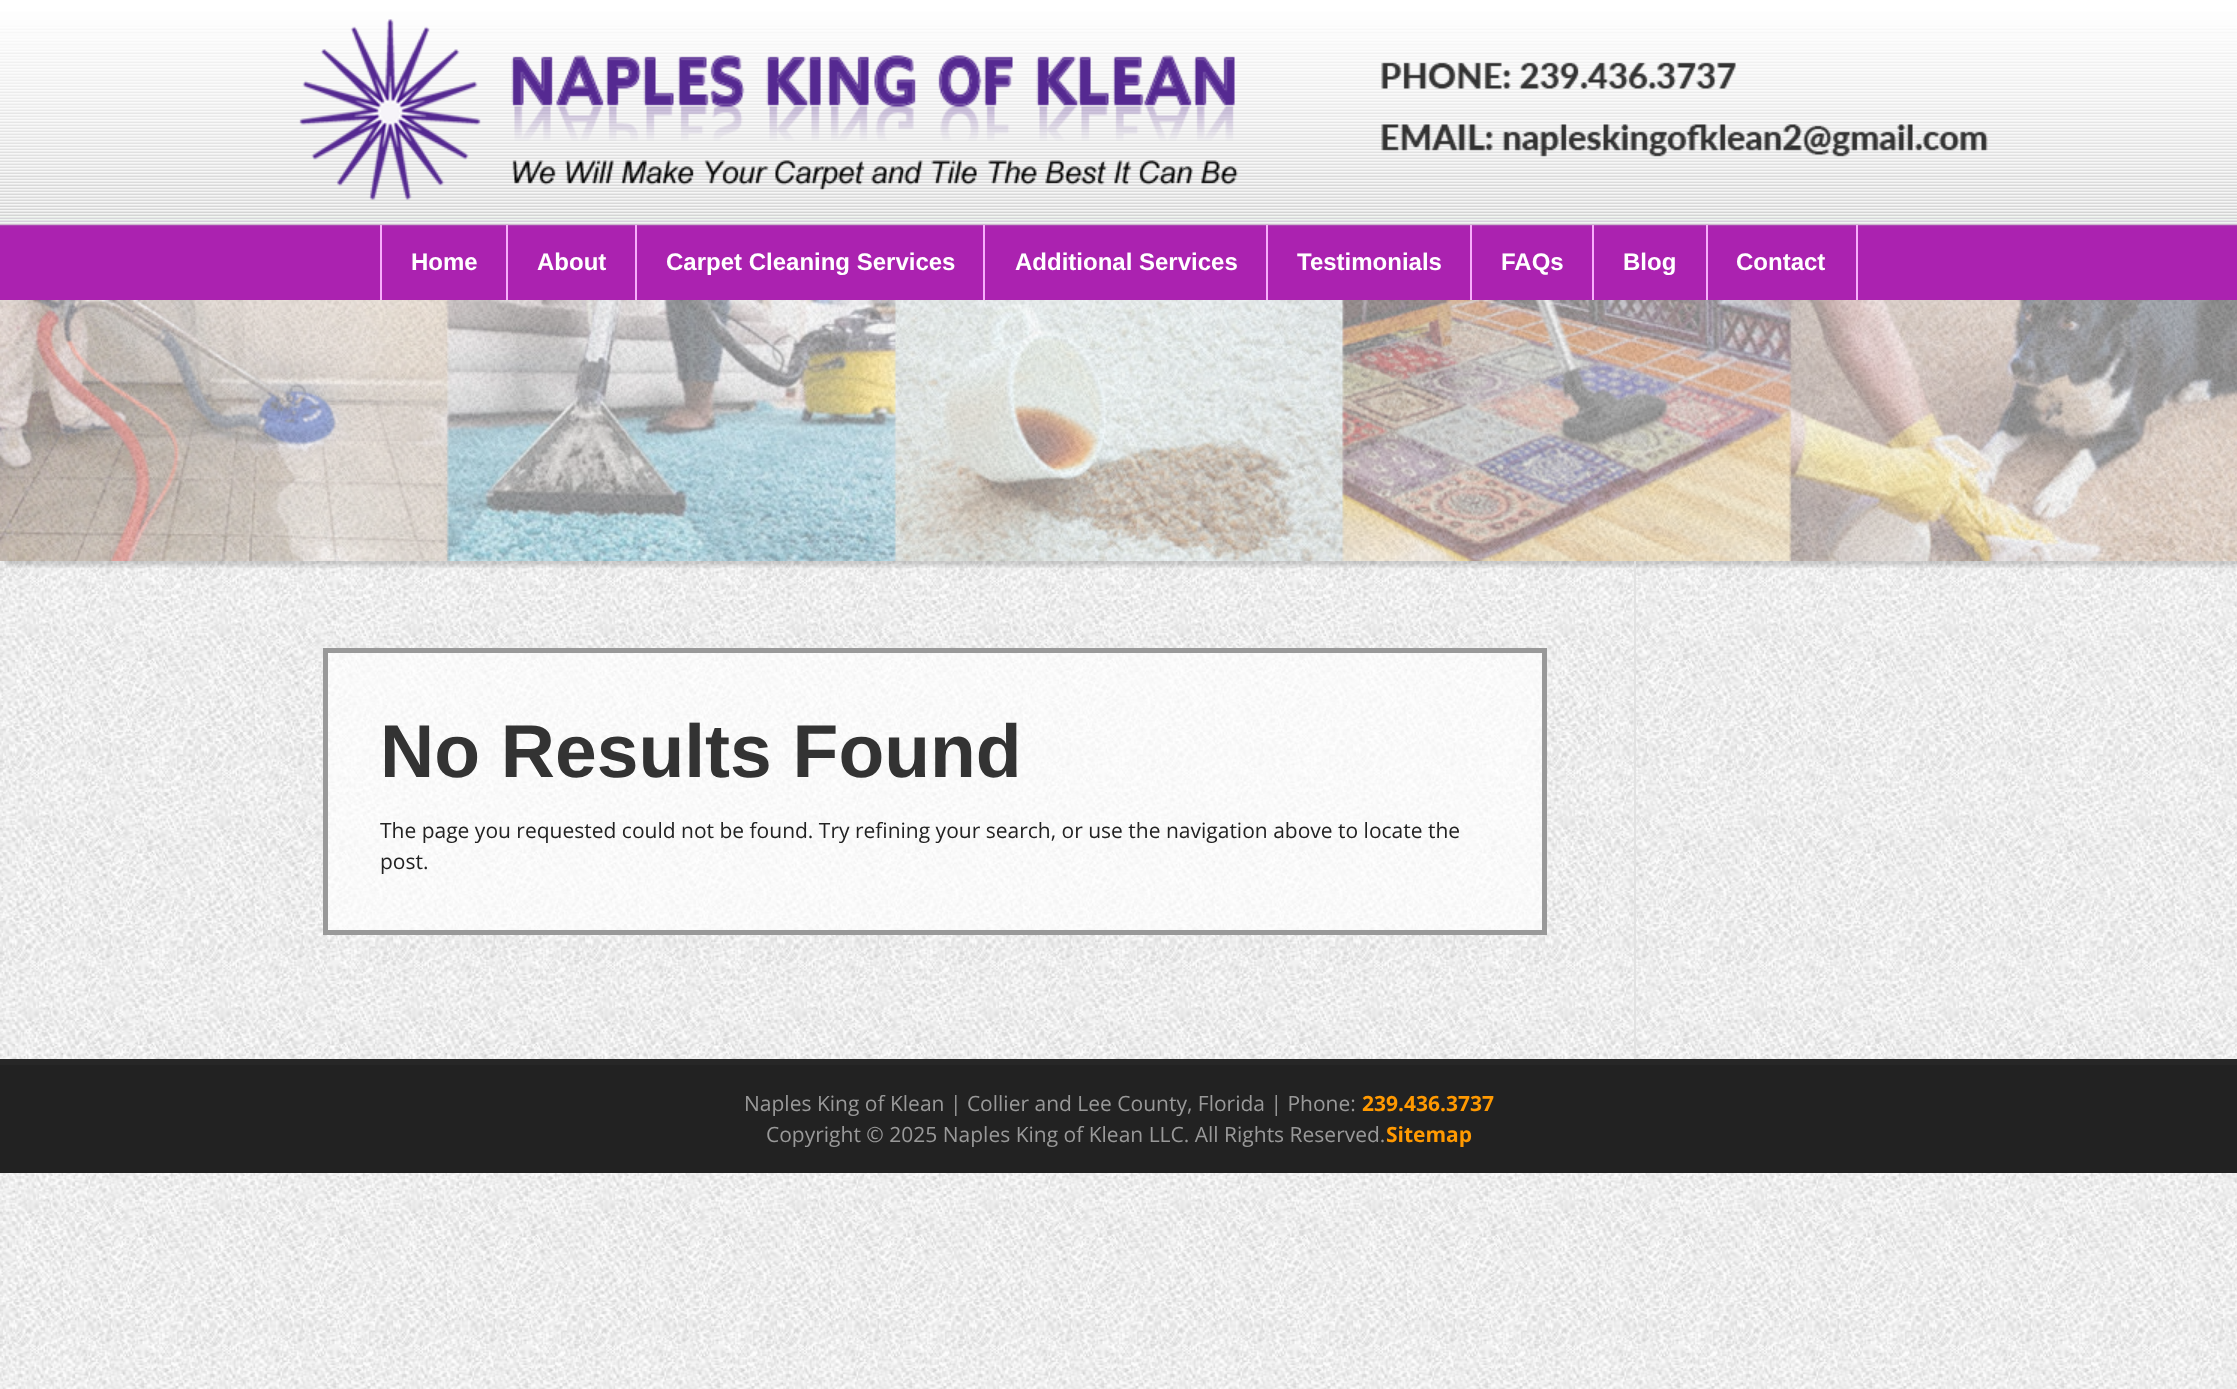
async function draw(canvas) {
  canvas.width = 2237
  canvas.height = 1389
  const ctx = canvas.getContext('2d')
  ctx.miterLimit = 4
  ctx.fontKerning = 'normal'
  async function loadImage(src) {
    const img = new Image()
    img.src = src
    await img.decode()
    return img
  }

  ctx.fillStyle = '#fff'
  ctx.fillRect(0, 0, 2237, 1389)
  ctx.drawImage(await loadImage('image0.png'), 0, 300, 2237, 1089)
  ctx.drawImage(await loadImage('image1.png'), 0, 0, 2237, 300)
  ctx.drawImage(await loadImage('image2.png'), 299, 19, 1689, 181)
  ctx.save()
  ctx.beginPath()
  ctx.rect(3, 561, 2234, 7)
  ctx.clip()
  ctx.fillStyle = '#00000026'
  ctx.filter = 'blur(2px)'
  ctx.beginPath()
  ctx.rect(5, 305, 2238, 261)
  ctx.fill()
  ctx.filter = 'none'
  ctx.restore()
  ctx.fillStyle = '#f8adfb'
  ctx.fillRect(380, 225, 2, 75)
  ctx.font = 'bold 24px Liberation Sans'
  ctx.fillStyle = '#fff'
  ctx.fillText('Home', 411, 270)
  ctx.fillStyle = '#f8adfb'
  ctx.fillRect(506, 225, 2, 75)
  ctx.fillStyle = '#fff'
  ctx.fillText('About', 537, 270)
  ctx.fillStyle = '#f8adfb'
  ctx.fillRect(635, 225, 2, 75)
  ctx.fillStyle = '#fff'
  ctx.fillText('Carpet Cleaning Services', 666, 270)
  ctx.fillStyle = '#f8adfb'
  ctx.fillRect(983, 225, 2, 75)
  ctx.fillStyle = '#fff'
  ctx.fillText('Additional Services', 1015, 270)
  ctx.fillStyle = '#f8adfb'
  ctx.fillRect(1266, 225, 2, 75)
  ctx.fillStyle = '#fff'
  ctx.fillText('Testimonials', 1297, 270)
  ctx.fillStyle = '#f8adfb'
  ctx.fillRect(1470, 225, 2, 75)
  ctx.fillStyle = '#fff'
  ctx.fillText('FAQs', 1501, 270)
  ctx.fillStyle = '#f8adfb'
  ctx.fillRect(1592, 225, 2, 75)
  ctx.fillStyle = '#fff'
  ctx.fillText('Blog', 1623, 270)
  ctx.fillStyle = '#f8adfb'
  ctx.fillRect(1856, 225, 2, 75)
  ctx.fillRect(1706, 225, 2, 75)
  ctx.fillStyle = '#fff'
  ctx.fillText('Contact', 1736, 270)
  ctx.drawImage(await loadImage('image3.png'), 0, 300, 2237, 261)
  ctx.fillStyle = '#ffffffb3'
  ctx.beginPath()
  ctx.rect(325.5, 650.5, 1219, 282)
  ctx.fill()
  ctx.strokeStyle = '#999'
  ctx.lineWidth = 5
  ctx.stroke()
  ctx.font = 'bold 75px Liberation Sans'
  ctx.fillStyle = '#333'
  ctx.fillText('No Results Found', 380, 777)
  ctx.font = '21px Open Sans'
  ctx.fillStyle = '#222'
  ctx.fillText('The page you requested could not be found. Try refining your search, or use the navigation above to locate the', 380, 838)
  ctx.fillText('post.', 380, 869)
  ctx.fillStyle = '#e2e2e2'
  ctx.fillRect(1634, 561, 2, 498)
  ctx.fillStyle = '#272727'
  ctx.fillRect(0, 1059, 2237, 6)
  ctx.fillStyle = '#222'
  ctx.fillRect(0, 1065, 2237, 108)
  ctx.fillStyle = '#999'
  ctx.fillText('Naples King of Klean | Collier and Lee County, Florida | Phone:', 744, 1111)
  ctx.font = 'bold 21px Open Sans'
  ctx.fillStyle = '#ff9901'
  ctx.fillText('239.436.3737', 1362, 1111)
  ctx.font = '21px Open Sans'
  ctx.fillStyle = '#999'
  ctx.fillText('Copyright © 2025 Naples King of Klean LLC. All Rights Reserved.', 766, 1142)
  ctx.font = 'bold 21px Open Sans'
  ctx.fillStyle = '#ff9901'
  ctx.fillText('Sitemap', 1386, 1142)
}

draw(document.querySelector('canvas'))
